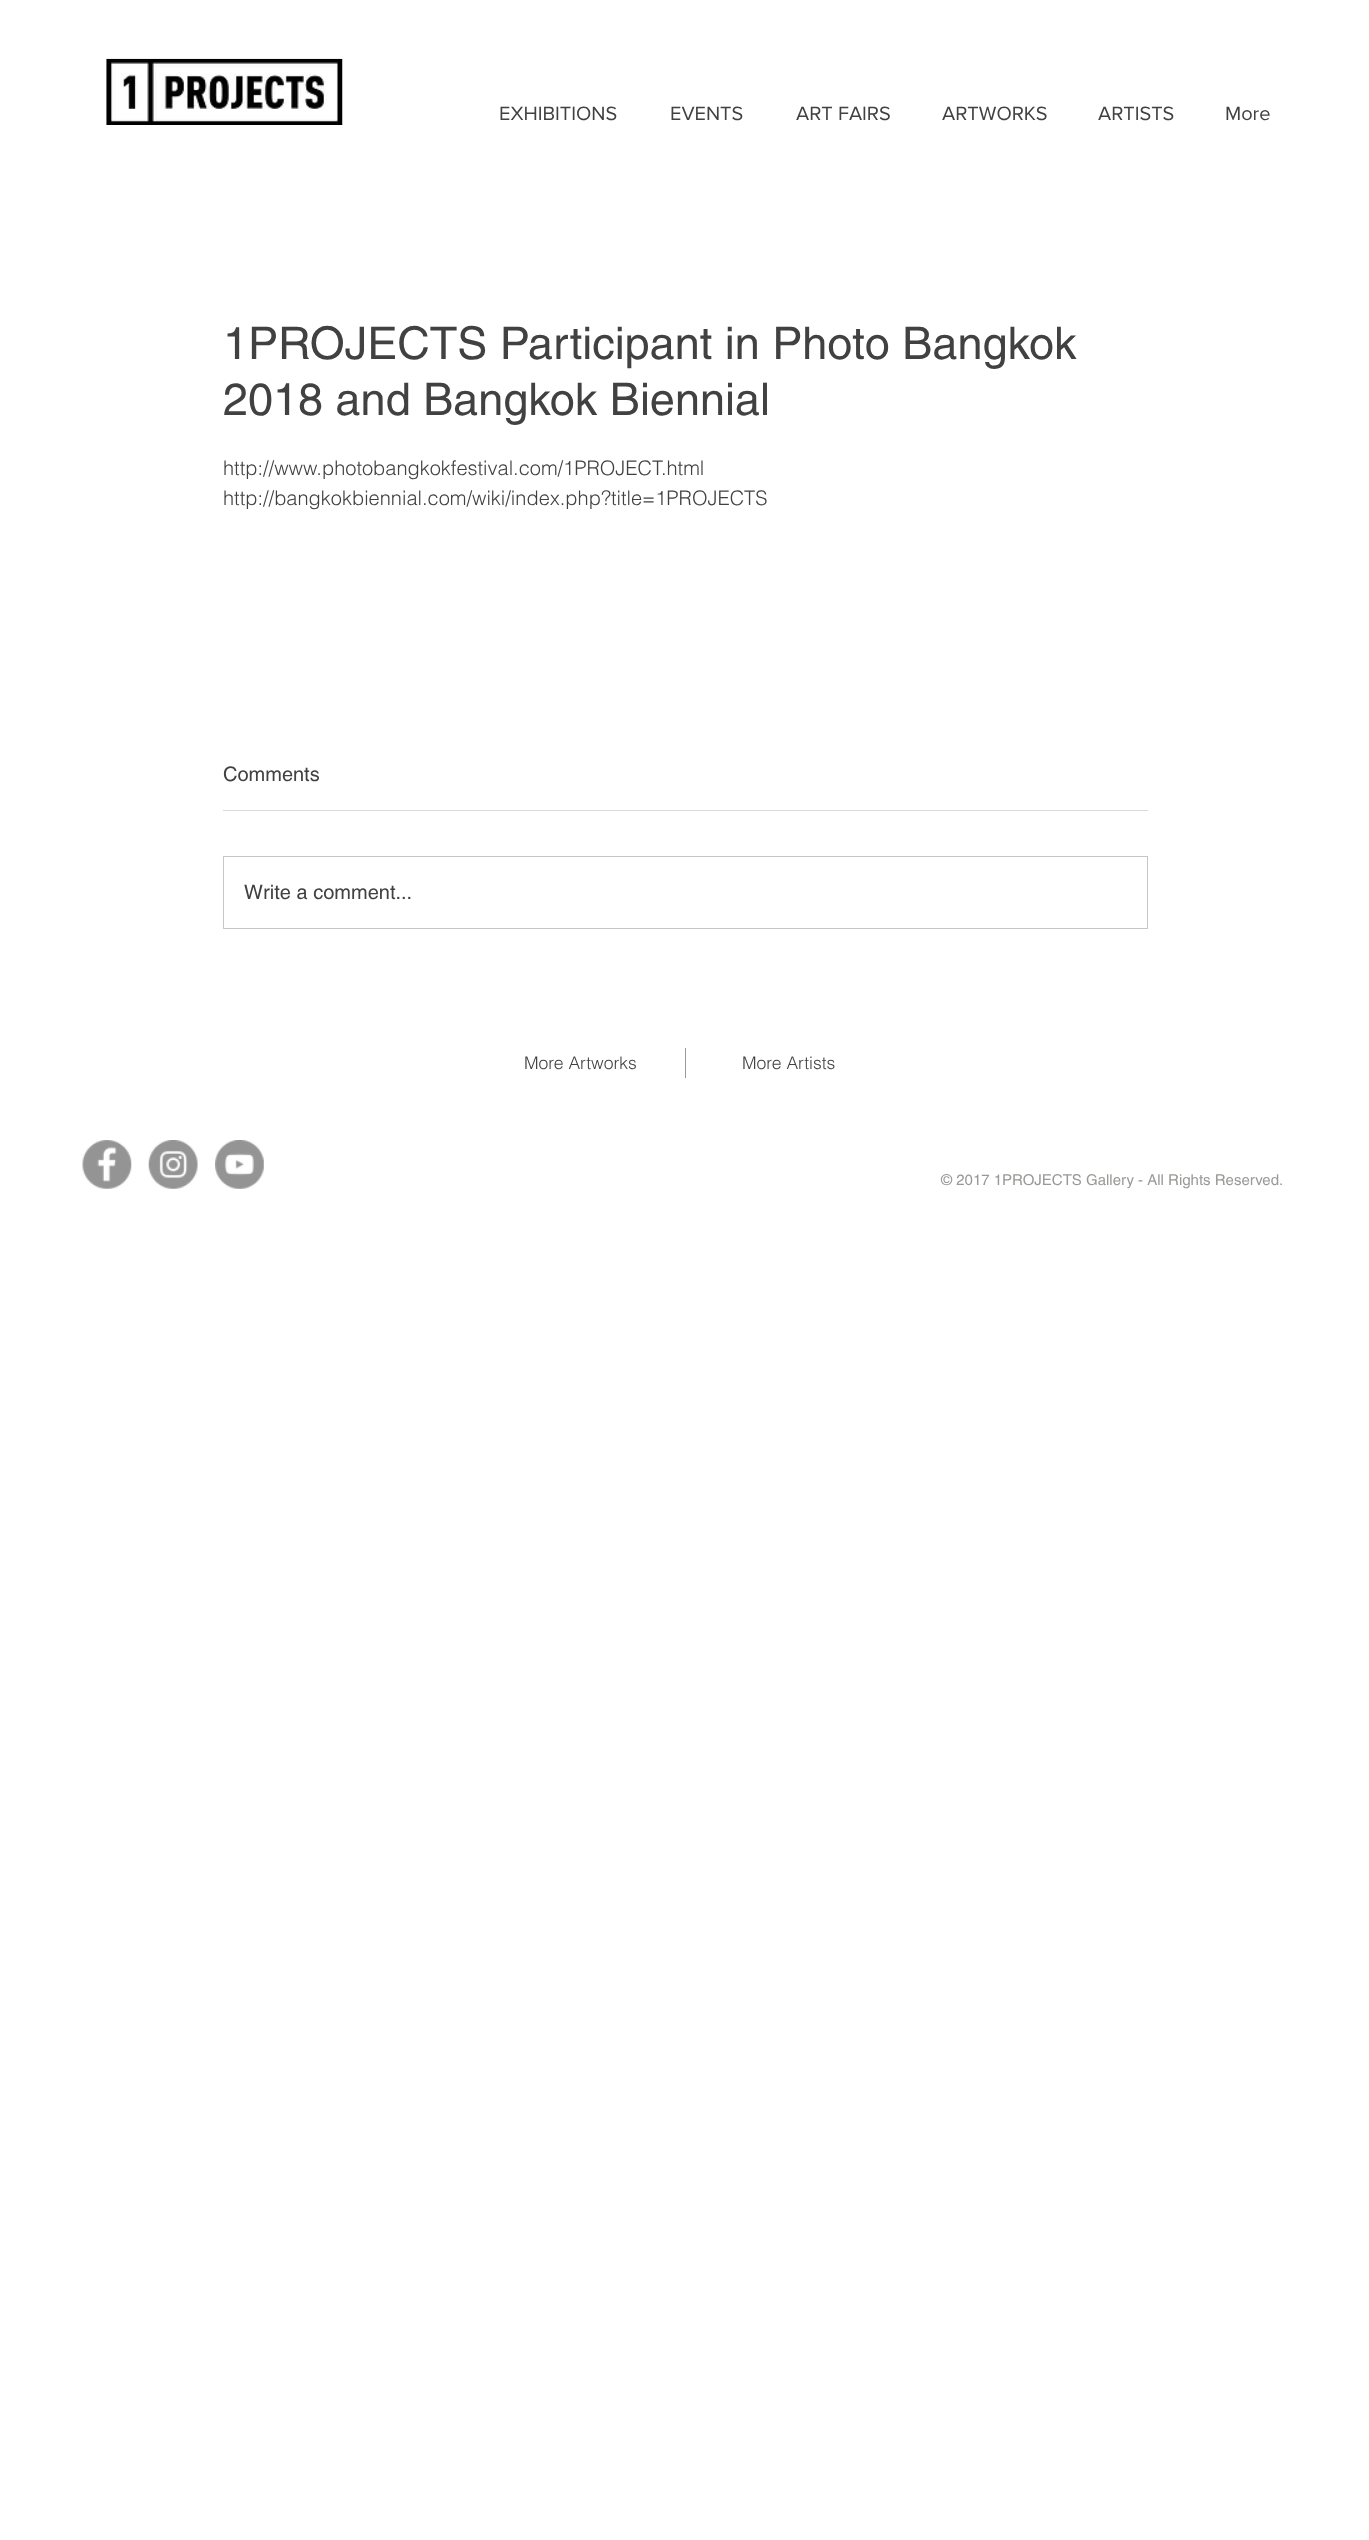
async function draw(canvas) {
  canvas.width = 1369
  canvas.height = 2540
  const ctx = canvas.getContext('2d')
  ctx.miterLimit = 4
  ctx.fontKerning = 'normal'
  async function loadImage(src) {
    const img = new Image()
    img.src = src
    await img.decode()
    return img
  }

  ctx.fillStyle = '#fff'
  ctx.fillRect(0, 0, 1369, 2540)
  ctx.drawImage(await loadImage('image0.png'), 106, 58, 237, 67)
  ctx.font = '20px "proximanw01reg"'
  ctx.fillStyle = '#414141'
  ctx.fillText('EXHIBITIONS', 499, 120)
  ctx.fillText('EVENTS', 670, 120)
  ctx.fillText('ART FAIRS', 796, 120)
  ctx.fillText('ARTWORKS', 942, 120)
  ctx.fillText('ARTISTS', 1098, 120)
  ctx.fillText('More', 1225, 120)
  ctx.font = '45px helvetica'
  ctx.fillText('1PROJECTS Participant in Photo Bangkok', 223, 359)
  ctx.fillText('2018 and Bangkok Biennial', 223, 415)
  ctx.font = '300 20px helvetica'
  ctx.fillText('http://www.photobangkokfestival.com/1PROJECT.html', 223, 475)
  ctx.fillText('http://bangkokbiennial.com/wiki/index.php?title=1PROJECTS', 223, 505)
  ctx.font = '20px helvetica'
  ctx.fillText('Comments', 223, 781)
  ctx.fillStyle = '#d9d9d9'
  ctx.fillRect(223, 810, 925, 1)
  ctx.strokeStyle = '#c6c6c6'
  ctx.strokeRect(223.5, 856.5, 924, 72)
  ctx.fillStyle = '#414141'
  ctx.fillText('Write a comment...', 244, 899)
  ctx.font = '300 17.5px helvetica'
  ctx.fillText('More Artworks', 524, 1069)
  ctx.fillStyle = '#999997'
  ctx.fillRect(685, 1048, 1, 30)
  ctx.fillStyle = '#414141'
  ctx.fillText('More Artists', 742, 1069)
  ctx.drawImage(await loadImage('image1.png'), 82, 1140, 50, 49)
  ctx.drawImage(await loadImage('image2.png'), 148, 1140, 50, 49)
  ctx.drawImage(await loadImage('image3.png'), 215, 1140, 49, 49)
  ctx.font = '15px helvetica'
  ctx.fillStyle = '#999997'
  ctx.fillText('© 2017 1PROJECTS Gallery - All Rights Reserved.', 941, 1185)
}

draw(document.querySelector('canvas'))
